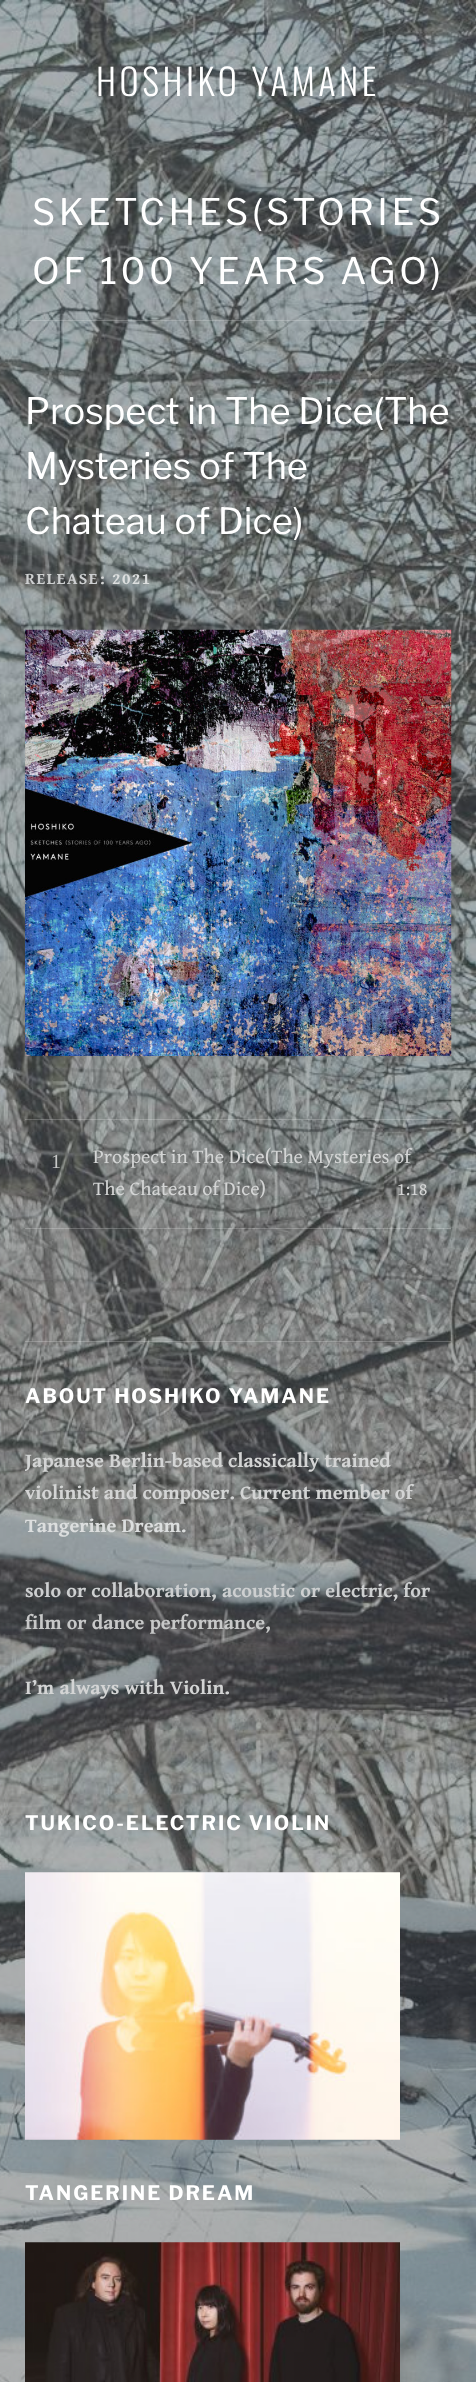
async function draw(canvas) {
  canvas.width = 476
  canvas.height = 2382
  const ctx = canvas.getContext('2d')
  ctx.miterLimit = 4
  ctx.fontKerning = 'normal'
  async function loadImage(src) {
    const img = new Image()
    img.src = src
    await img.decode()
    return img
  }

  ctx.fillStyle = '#fff'
  ctx.fillRect(0, 0, 476, 2382)
  ctx.drawImage(await loadImage('image0.png'), 0, 0, 476, 2382)
  ctx.letterSpacing = '3.6px'
  ctx.font = '300 36.25px Oswald'
  ctx.fillText('HOSHIKO YAMANE', 96, 96)
  ctx.fillStyle = '#ffffff33'
  ctx.fillRect(25, 320, 426, 1)
  ctx.font = '36.25px Libre Franklin'
  ctx.fillStyle = '#fff'
  ctx.fillText('SKETCHES(STORIES', 32, 225)
  ctx.fillText('OF 100 YEARS AGO)', 32, 284)
  ctx.letterSpacing = '0px'
  ctx.fillText('Prospect in The Dice(The', 25, 424)
  ctx.fillText('Mysteries of The', 25, 479)
  ctx.fillText('Chateau of Dice)', 25, 534)
  ctx.letterSpacing = '1.5px'
  ctx.font = 'bold 16.25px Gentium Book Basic'
  ctx.fillStyle = '#cdcfd0'
  ctx.fillText('RELEASE', 25, 584)
  ctx.fillStyle = '#d3d4d4'
  ctx.fillText(':', 100, 584)
  ctx.fillStyle = '#dcdede'
  ctx.fillText('2021', 112, 584)
  ctx.drawImage(await loadImage('image1.png'), 25, 629, 427, 427)
  ctx.fillStyle = '#ffffff33'
  ctx.fillRect(25, 1119, 426, 1)
  ctx.fillRect(25, 1228, 426, 1)
  ctx.letterSpacing = '0px'
  ctx.font = '20px Liberation Serif'
  ctx.fillStyle = '#c7c8c8'
  ctx.fillText('1', 51, 1168)
  ctx.font = '20px Gentium Book Basic'
  ctx.fillStyle = '#d3d4d4'
  ctx.fillText('Prospect in The Dice(The Mysteries of', 93, 1163)
  ctx.fillText('The Chateau of Dice)', 93, 1195)
  ctx.font = '18px Gentium Book Basic'
  ctx.fillText('1:18', 397, 1195)
  ctx.fillStyle = '#ffffff33'
  ctx.fillRect(25, 1341, 426, 1)
  ctx.letterSpacing = '2px'
  ctx.font = 'bold 20px Libre Franklin'
  ctx.fillStyle = '#fff'
  ctx.fillText('ABOUT HOSHIKO YAMANE', 25, 1403)
  ctx.save()
  ctx.beginPath()
  ctx.rect(25, 1343, 426, 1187)
  ctx.clip()
  ctx.letterSpacing = '0px'
  ctx.font = 'bold 20px Gentium Book Basic'
  ctx.fillStyle = '#d3d4d4'
  ctx.fillText('Japanese Berlin-based classically trained', 25, 1467)
  ctx.restore()
  ctx.letterSpacing = '0px'
  ctx.font = 'bold 20px Gentium Book Basic'
  ctx.fillStyle = '#d3d4d4'
  ctx.fillText('violinist and composer. Current member of', 25, 1499)
  ctx.fillStyle = '#dcdede'
  ctx.fillText('Tangerine Dream.', 25, 1532)
  ctx.fillStyle = '#cdcfd0'
  ctx.fillText('solo or collaboration, acoustic or electric, for', 25, 1597)
  ctx.fillStyle = '#c7c8c8'
  ctx.fillText('film or dance performance,', 25, 1629)
  ctx.fillStyle = '#d3d4d4'
  ctx.fillText('I’m always with Violin.', 25, 1694)
  ctx.letterSpacing = '2px'
  ctx.font = 'bold 20px Libre Franklin'
  ctx.fillStyle = '#fff'
  ctx.fillText('TUKICO-ELECTRIC VIOLIN', 25, 1830)
  ctx.drawImage(await loadImage('image2.png'), 25, 1872, 375, 268)
  ctx.fillText('TANGERINE DREAM', 25, 2200)
  ctx.drawImage(await loadImage('image3.png'), 25, 2242, 375, 140)
}

draw(document.querySelector('canvas'))
